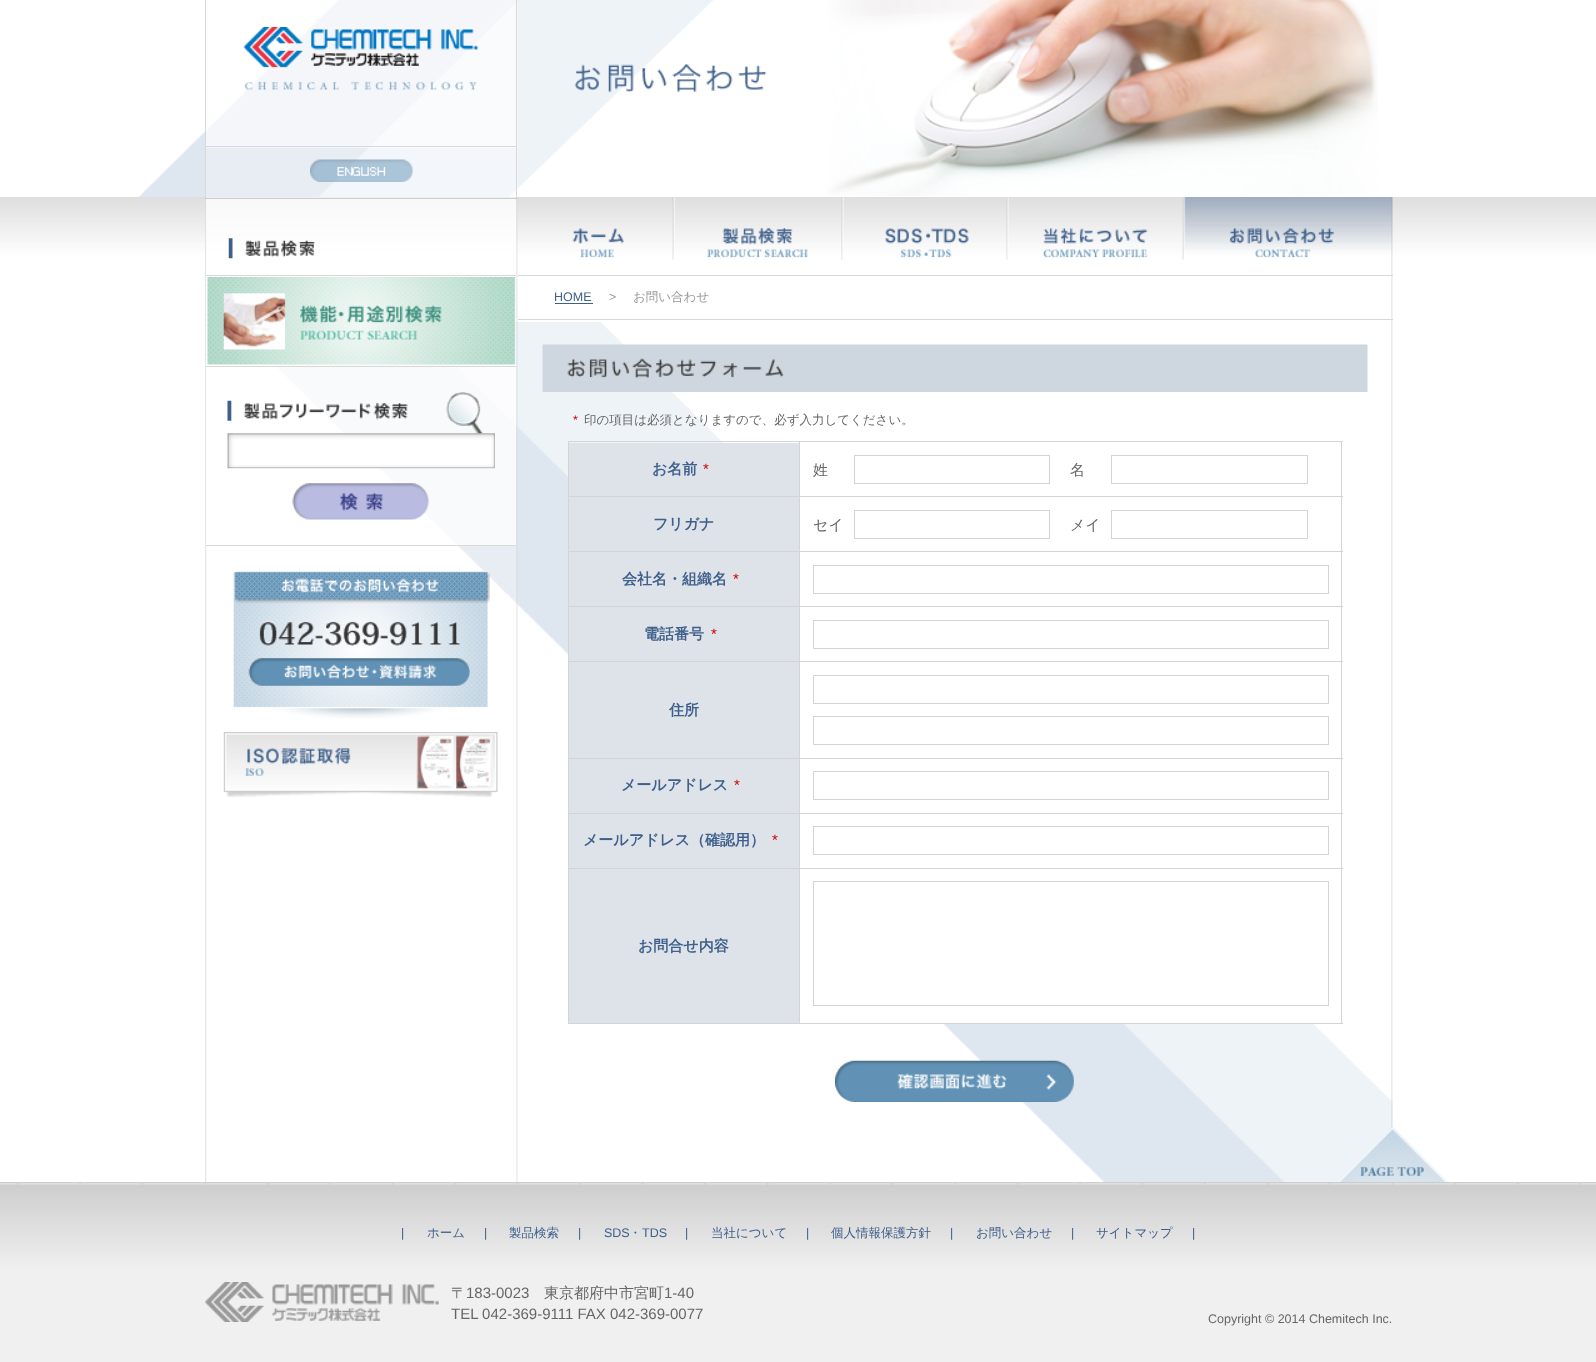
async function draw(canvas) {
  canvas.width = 1596
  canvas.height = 1362
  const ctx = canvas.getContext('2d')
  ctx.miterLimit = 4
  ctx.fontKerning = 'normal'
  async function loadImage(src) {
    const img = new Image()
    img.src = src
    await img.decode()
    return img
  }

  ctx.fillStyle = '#fff'
  ctx.fillRect(0, 0, 1596, 1362)
  ctx.drawImage(await loadImage('image0.png'), 138, 0, 1255, 1182)
  ctx.drawImage(await loadImage('image4.png'), 0, 197, 1596, 125)
  ctx.drawImage(await loadImage('image5.png'), 205, 197, 1188, 985)
  ctx.fillStyle = '#ffffff4d'
  ctx.fillRect(206, 0, 312, 198)
  ctx.fillStyle = '#d8d8d8'
  ctx.fillRect(516, 0, 1, 198)
  ctx.fillRect(205, 0, 1, 198)
  ctx.fillStyle = '#ffffff80'
  ctx.fillRect(206, 0, 310, 148)
  ctx.fillStyle = '#d8d8d8'
  ctx.fillRect(206, 146, 310, 1)
  ctx.drawImage(await loadImage('image1.png'), 243, 27, 235, 63)
  ctx.drawImage(await loadImage('image2.png'), 310, 159, 103, 23)
  ctx.drawImage(await loadImage('image3.png'), 574, 0, 804, 196)
  ctx.fillStyle = '#ccc'
  ctx.fillRect(205, 198, 313, 1)
  ctx.fillStyle = '#ffffffb3'
  ctx.fillRect(206, 199, 310, 169)
  ctx.fillStyle = '#d8d8d8'
  ctx.fillRect(206, 366, 310, 1)
  ctx.drawImage(await loadImage('image6.png'), 228, 238, 87, 21)
  ctx.fillRect(206, 275, 310, 1)
  ctx.drawImage(await loadImage('image7.png'), 207, 277, 309, 88)
  ctx.fillStyle = '#ffffffb3'
  ctx.fillRect(206, 368, 310, 177)
  ctx.fillStyle = '#d8d8d8'
  ctx.fillRect(206, 545, 310, 1)
  ctx.drawImage(await loadImage('image9.png'), 227, 433, 268, 36)
  ctx.drawImage(await loadImage('image8.png'), 227, 392, 256, 42)
  ctx.drawImage(await loadImage('image10.png'), 292, 483, 137, 37)
  ctx.drawImage(await loadImage('image11.png'), 233, 571, 257, 148)
  ctx.drawImage(await loadImage('image12.png'), 248, 658, 222, 28)
  ctx.drawImage(await loadImage('image13.png'), 223, 732, 275, 65)
  ctx.drawImage(await loadImage('image14.png'), 572, 197, 102, 63)
  ctx.drawImage(await loadImage('image15.png'), 673, 197, 170, 63)
  ctx.drawImage(await loadImage('image16.png'), 842, 197, 166, 63)
  ctx.drawImage(await loadImage('image17.png'), 1007, 197, 177, 63)
  ctx.drawImage(await loadImage('image18.png'), 1184, 197, 209, 61)
  ctx.fillRect(518, 275, 875, 1)
  ctx.fillRect(518, 319, 875, 1)
  ctx.font = '12.5px Liberation Sans'
  ctx.fillStyle = '#3f608b'
  ctx.fillText('HOME', 554, 301)
  ctx.fillRect(555, 303, 38, 1)
  ctx.fillStyle = '#999'
  ctx.fillText('>', 609, 301)
  ctx.font = '500 12.5px WenQuanYi Zen Hei'
  ctx.fillText('お問い合わせ', 633, 301)
  ctx.drawImage(await loadImage('image19.png'), 542, 344, 826, 48)
  ctx.font = '12.5px Liberation Sans'
  ctx.fillStyle = '#c00'
  ctx.fillText('*', 573, 424)
  ctx.font = '500 12.5px WenQuanYi Zen Hei'
  ctx.fillStyle = '#666'
  ctx.fillText('印の項目は必須となりますので、必ず入力してください。', 584, 424)
  ctx.fillStyle = '#d4d4d4'
  ctx.fillRect(568, 441, 775, 1)
  ctx.fillRect(568, 441, 1, 583)
  ctx.fillStyle = '#dee3e9'
  ctx.fillRect(569, 443, 230, 315)
  ctx.fillStyle = '#fff'
  ctx.fillRect(800, 518, 35, 35)
  ctx.fillRect(800, 553, 92, 55)
  ctx.fillRect(800, 608, 147, 55)
  ctx.fillStyle = '#d4d4d4'
  ctx.fillRect(1341, 441, 1, 583)
  ctx.fillRect(799, 1023, 544, 1)
  ctx.fillRect(799, 868, 1, 156)
  ctx.fillRect(799, 868, 544, 1)
  ctx.fillRect(799, 813, 1, 56)
  ctx.fillRect(799, 813, 544, 1)
  ctx.fillRect(799, 758, 1, 56)
  ctx.fillRect(799, 758, 544, 1)
  ctx.fillRect(799, 661, 1, 98)
  ctx.fillRect(799, 661, 544, 1)
  ctx.fillRect(799, 606, 1, 57)
  ctx.fillRect(799, 606, 544, 1)
  ctx.fillRect(799, 551, 1, 57)
  ctx.fillRect(799, 551, 544, 1)
  ctx.fillRect(799, 496, 1, 57)
  ctx.fillRect(799, 496, 544, 1)
  ctx.fillRect(799, 441, 1, 57)
  ctx.fillRect(568, 496, 232, 1)
  ctx.font = 'bold 15px WenQuanYi Zen Hei'
  ctx.fillStyle = '#3f608b'
  ctx.fillText('お名前', 652, 474)
  ctx.font = '15px Liberation Sans'
  ctx.fillStyle = '#c00'
  ctx.fillText('*', 703, 474)
  ctx.font = '500 15px WenQuanYi Zen Hei'
  ctx.fillStyle = '#666'
  ctx.fillText('姓', 813, 475)
  ctx.strokeStyle = '#d4d4d4'
  ctx.strokeRect(854.5, 455.5, 195, 28)
  ctx.fillText('名', 1070, 475)
  ctx.strokeRect(1111.5, 455.5, 196, 28)
  ctx.fillStyle = '#d4d4d4'
  ctx.fillRect(568, 551, 232, 1)
  ctx.font = 'bold 15px WenQuanYi Zen Hei'
  ctx.fillStyle = '#3f608b'
  ctx.fillText('フリガナ', 653, 529)
  ctx.font = '500 15px WenQuanYi Zen Hei'
  ctx.fillStyle = '#666'
  ctx.fillText('セイ', 813, 530)
  ctx.strokeRect(854.5, 510.5, 195, 28)
  ctx.fillText('メイ', 1070, 530)
  ctx.strokeRect(1111.5, 510.5, 196, 28)
  ctx.fillStyle = '#d4d4d4'
  ctx.fillRect(568, 606, 232, 1)
  ctx.font = 'bold 15px WenQuanYi Zen Hei'
  ctx.fillStyle = '#3f608b'
  ctx.fillText('会社名・組織名', 622, 584)
  ctx.font = '15px Liberation Sans'
  ctx.fillStyle = '#c00'
  ctx.fillText('*', 733, 584)
  ctx.strokeRect(813.5, 565.5, 515, 28)
  ctx.fillStyle = '#d4d4d4'
  ctx.fillRect(568, 661, 232, 1)
  ctx.font = 'bold 15px WenQuanYi Zen Hei'
  ctx.fillStyle = '#3f608b'
  ctx.fillText('電話番号', 644, 639)
  ctx.font = '15px Liberation Sans'
  ctx.fillStyle = '#c00'
  ctx.fillText('*', 711, 639)
  ctx.strokeRect(813.5, 620.5, 515, 28)
  ctx.fillStyle = '#d4d4d4'
  ctx.fillRect(568, 758, 232, 1)
  ctx.font = 'bold 15px WenQuanYi Zen Hei'
  ctx.fillStyle = '#3f608b'
  ctx.fillText('住所', 669, 715)
  ctx.fillStyle = '#fff'
  ctx.fillRect(800, 663, 244, 95)
  ctx.strokeRect(813.5, 675.5, 515, 28)
  ctx.strokeRect(813.5, 716.5, 515, 28)
  ctx.fillStyle = '#dee3e9'
  ctx.fillRect(569, 759, 230, 54)
  ctx.fillStyle = '#d4d4d4'
  ctx.fillRect(568, 813, 232, 1)
  ctx.fillStyle = '#3f608b'
  ctx.fillText('メールアドレス', 621, 790)
  ctx.font = '15px Liberation Sans'
  ctx.fillStyle = '#c00'
  ctx.fillText('*', 734, 790)
  ctx.fillStyle = '#fff'
  ctx.fillRect(800, 759, 299, 54)
  ctx.strokeRect(813.5, 771.5, 515, 28)
  ctx.fillStyle = '#dee3e9'
  ctx.fillRect(569, 814, 230, 54)
  ctx.fillStyle = '#d4d4d4'
  ctx.fillRect(568, 868, 232, 1)
  ctx.font = 'bold 15px WenQuanYi Zen Hei'
  ctx.fillStyle = '#3f608b'
  ctx.fillText('メールアドレス（確認用）', 583, 845)
  ctx.font = '15px Liberation Sans'
  ctx.fillStyle = '#c00'
  ctx.fillText('*', 772, 845)
  ctx.fillStyle = '#fff'
  ctx.fillRect(800, 814, 355, 54)
  ctx.strokeRect(813.5, 826.5, 515, 28)
  ctx.fillStyle = '#dee3e9'
  ctx.fillRect(569, 869, 230, 154)
  ctx.fillStyle = '#d4d4d4'
  ctx.fillRect(568, 1023, 232, 1)
  ctx.font = 'bold 15px WenQuanYi Zen Hei'
  ctx.fillStyle = '#3f608b'
  ctx.fillText('お問合せ内容', 638, 951)
  ctx.fillStyle = '#fff'
  ctx.fillRect(800, 869, 513, 154)
  ctx.strokeRect(813.5, 881.5, 515, 124)
  ctx.drawImage(await loadImage('image20.png'), 835, 1060, 239, 42)
  ctx.drawImage(await loadImage('image21.png'), 0, 1182, 1596, 180)
  ctx.drawImage(await loadImage('image22.png'), 1339, 1127, 109, 55)
  ctx.font = '12.5px Liberation Sans'
  ctx.fillStyle = '#3f608b'
  ctx.fillText('|', 401, 1237)
  ctx.font = '500 12.5px WenQuanYi Zen Hei'
  ctx.fillText('ホーム', 427, 1237)
  ctx.font = '12.5px Liberation Sans'
  ctx.fillText('|', 484, 1237)
  ctx.font = '500 12.5px WenQuanYi Zen Hei'
  ctx.fillText('製品検索', 509, 1237)
  ctx.font = '12.5px Liberation Sans'
  ctx.fillText('|', 578, 1237)
  ctx.fillText('SDS', 604, 1237)
  ctx.font = '500 12.5px WenQuanYi Zen Hei'
  ctx.fillText('・', 629, 1237)
  ctx.font = '12.5px Liberation Sans'
  ctx.fillText('TDS', 642, 1237)
  ctx.fillText('|', 685, 1237)
  ctx.font = '500 12.5px WenQuanYi Zen Hei'
  ctx.fillText('当社について', 711, 1237)
  ctx.font = '12.5px Liberation Sans'
  ctx.fillText('|', 806, 1237)
  ctx.font = '500 12.5px WenQuanYi Zen Hei'
  ctx.fillText('個人情報保護方針', 831, 1237)
  ctx.font = '12.5px Liberation Sans'
  ctx.fillText('|', 950, 1237)
  ctx.font = '500 12.5px WenQuanYi Zen Hei'
  ctx.fillText('お問い合わせ', 976, 1237)
  ctx.font = '12.5px Liberation Sans'
  ctx.fillText('|', 1071, 1237)
  ctx.font = '500 12.5px WenQuanYi Zen Hei'
  ctx.fillText('サイトマップ', 1096, 1237)
  ctx.font = '12.5px Liberation Sans'
  ctx.fillText('|', 1192, 1237)
  ctx.drawImage(await loadImage('image23.png'), 205, 1282, 234, 40)
  ctx.font = '500 15px WenQuanYi Zen Hei'
  ctx.fillStyle = '#666'
  ctx.fillText('〒', 451, 1298)
  ctx.font = '15px Liberation Sans'
  ctx.fillText('183-0023', 466, 1298)
  ctx.font = '500 15px WenQuanYi Zen Hei'
  ctx.fillText('東京都府中市宮町', 544, 1298)
  ctx.font = '15px Liberation Sans'
  ctx.fillText('1-40', 664, 1298)
  ctx.fillText('TEL 042-369-9111 FAX 042-369-0077', 451, 1319)
  ctx.font = '12.5px Liberation Sans'
  ctx.fillText('Copyright © 2014 Chemitech Inc.', 1208, 1323)
}

draw(document.querySelector('canvas'))
